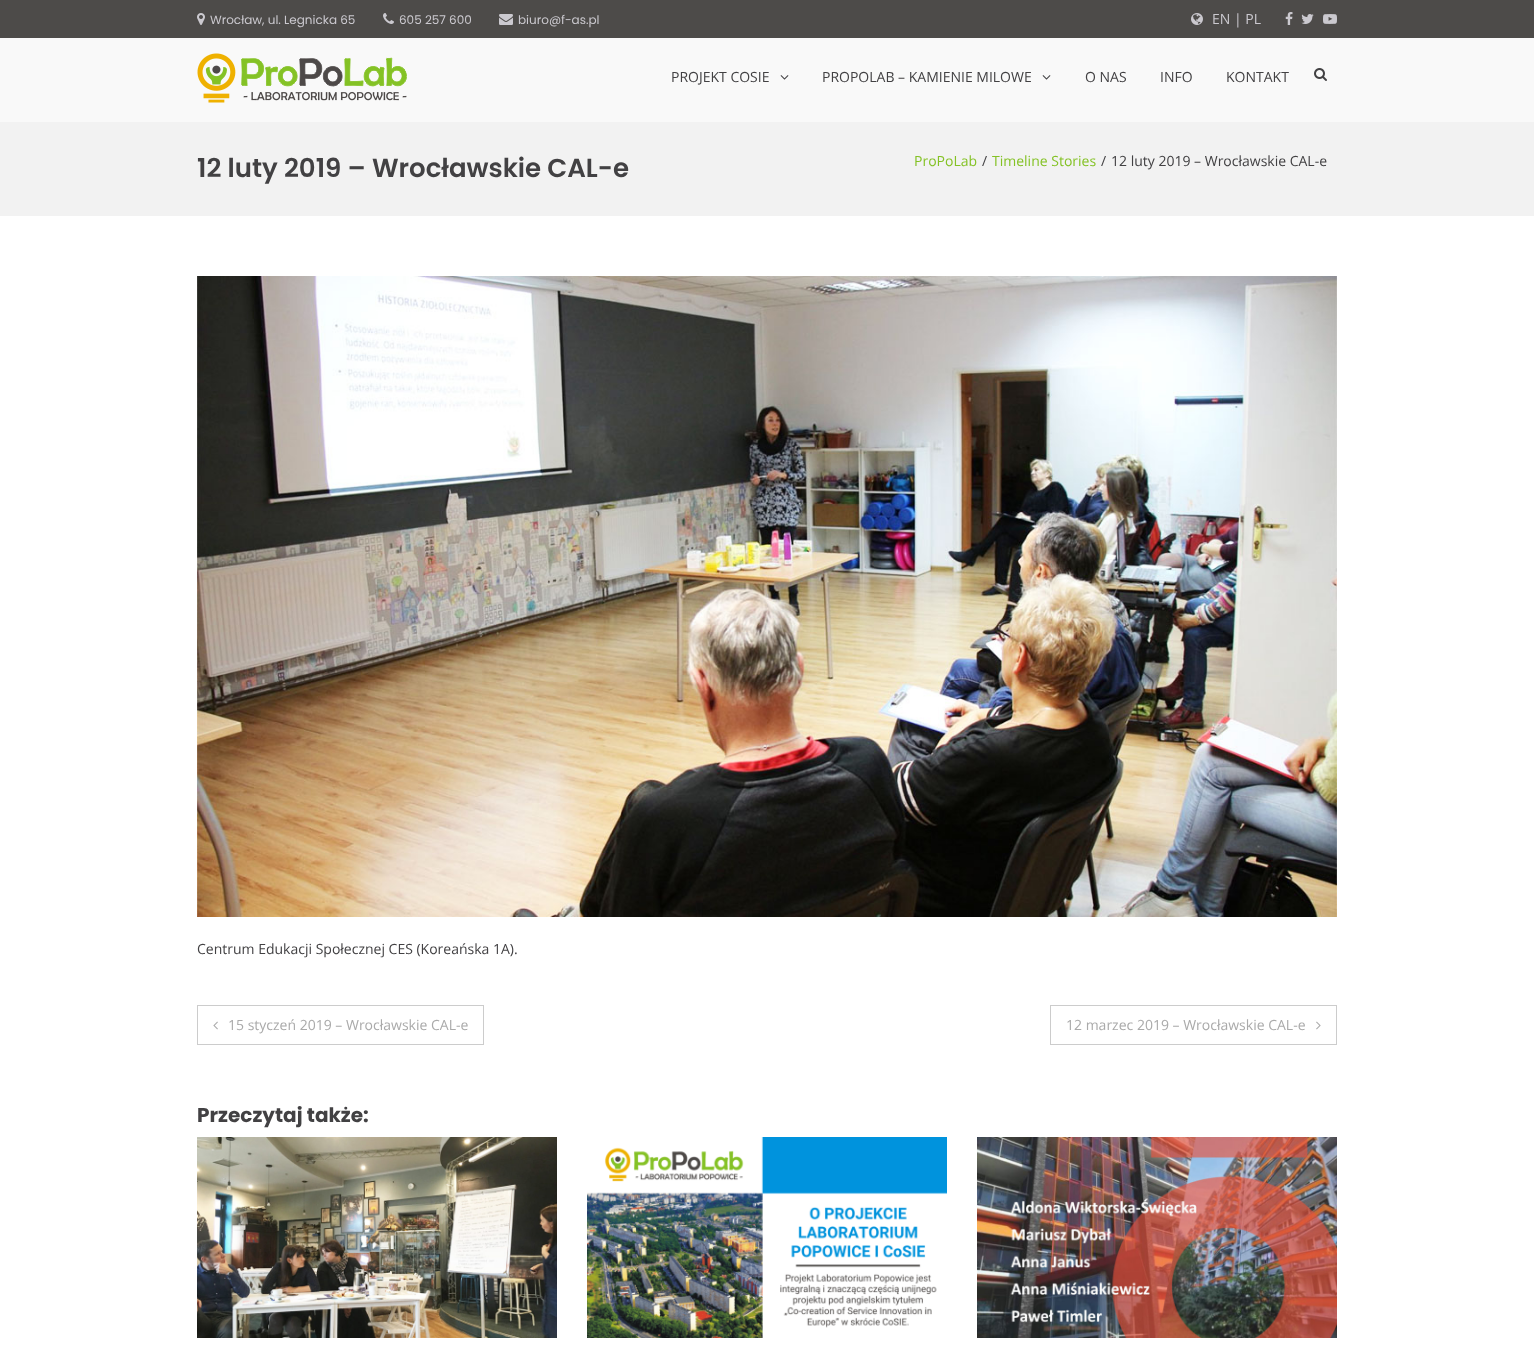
async function draw(canvas) {
  canvas.width = 1534
  canvas.height = 1363
  const ctx = canvas.getContext('2d')
  ctx.miterLimit = 4
  ctx.fontKerning = 'normal'
  async function loadImage(src) {
    const img = new Image()
    img.src = src
    await img.decode()
    return img
  }

  ctx.fillStyle = '#fff'
  ctx.fillRect(0, 0, 1534, 1363)
  ctx.fillStyle = '#4d4b49'
  ctx.fillRect(0, 0, 1534, 38)
  ctx.drawImage(await loadImage('image0.png'), 197, 13, 8, 12)
  ctx.font = '12px Poppins'
  ctx.fillStyle = '#cbc9cf'
  ctx.fillText('Wrocław, ul. Legnicka 65', 210, 24)
  ctx.drawImage(await loadImage('image1.png'), 383, 13, 11, 11)
  ctx.fillText('605 257 600', 399, 24)
  ctx.drawImage(await loadImage('image2.png'), 499, 14, 14, 11)
  ctx.fillText('biuro@f-as.pl', 518, 24)
  ctx.drawImage(await loadImage('image3.png'), 1191, 13, 12, 12)
  ctx.font = '14px Open Sans'
  ctx.fillText('EN | PL', 1212, 24)
  ctx.drawImage(await loadImage('image4.png'), 1285, 12, 8, 13)
  ctx.drawImage(await loadImage('image5.png'), 1301, 14, 13, 10)
  ctx.drawImage(await loadImage('image6.png'), 1323, 14, 14, 10)
  ctx.fillStyle = '#f9f9f9'
  ctx.fillRect(0, 38, 1534, 84)
  ctx.drawImage(await loadImage('image7.png'), 197, 53, 210, 50)
  ctx.fillStyle = '#424143'
  ctx.fillText('PROJEKT COSIE', 671, 82)
  ctx.drawImage(await loadImage('image8.png'), 780, 75, 9, 5)
  ctx.fillText('PROPOLAB – KAMIENIE MILOWE', 822, 82)
  ctx.drawImage(await loadImage('image8.png'), 1042, 75, 9, 5)
  ctx.fillText('O NAS', 1085, 82)
  ctx.fillText('INFO', 1160, 82)
  ctx.fillText('KONTAKT', 1226, 82)
  ctx.drawImage(await loadImage('image9.png'), 1314, 68, 13, 13)
  ctx.fillStyle = '#f2f2f2'
  ctx.fillRect(0, 122, 1534, 94)
  ctx.font = '600 26px Poppins'
  ctx.fillStyle = '#424143'
  ctx.fillText('12 luty 2019 – Wrocławskie CAL-e', 197, 177)
  ctx.font = '14px Open Sans'
  ctx.fillStyle = '#84c225'
  ctx.fillText('ProPoLab', 914, 166)
  ctx.fillStyle = '#424143'
  ctx.fillText('/', 982, 166)
  ctx.fillStyle = '#84c225'
  ctx.fillText('Timeline Stories', 992, 166)
  ctx.fillStyle = '#424143'
  ctx.fillText('/', 1101, 166)
  ctx.fillText('12 luty 2019 – Wrocławskie CAL-e', 1111, 166)
  ctx.drawImage(await loadImage('image10.png'), 197, 276, 1140, 641)
  ctx.fillText('Centrum Edukacji Społecznej CES (Koreańska 1A).', 197, 954)
  ctx.strokeStyle = '#ccc'
  ctx.strokeRect(197.5, 1005.5, 286, 39)
  ctx.drawImage(await loadImage('image11.png'), 213, 1021, 5, 9)
  ctx.fillStyle = '#aaa'
  ctx.fillText('15 styczeń 2019 – Wrocławskie CAL-e', 228, 1030)
  ctx.strokeRect(1050.5, 1005.5, 286, 39)
  ctx.fillText('12 marzec 2019 – Wrocławskie CAL-e', 1066, 1030)
  ctx.drawImage(await loadImage('image12.png'), 1316, 1021, 5, 9)
  ctx.font = 'bold 20px Poppins'
  ctx.fillStyle = '#424143'
  ctx.fillText('Przeczytaj także:', 197, 1122)
  ctx.drawImage(await loadImage('image13.png'), 197, 1137, 360, 201)
  ctx.drawImage(await loadImage('image14.png'), 587, 1137, 360, 201)
  ctx.drawImage(await loadImage('image15.png'), 977, 1137, 360, 201)
}

draw(document.querySelector('canvas'))
